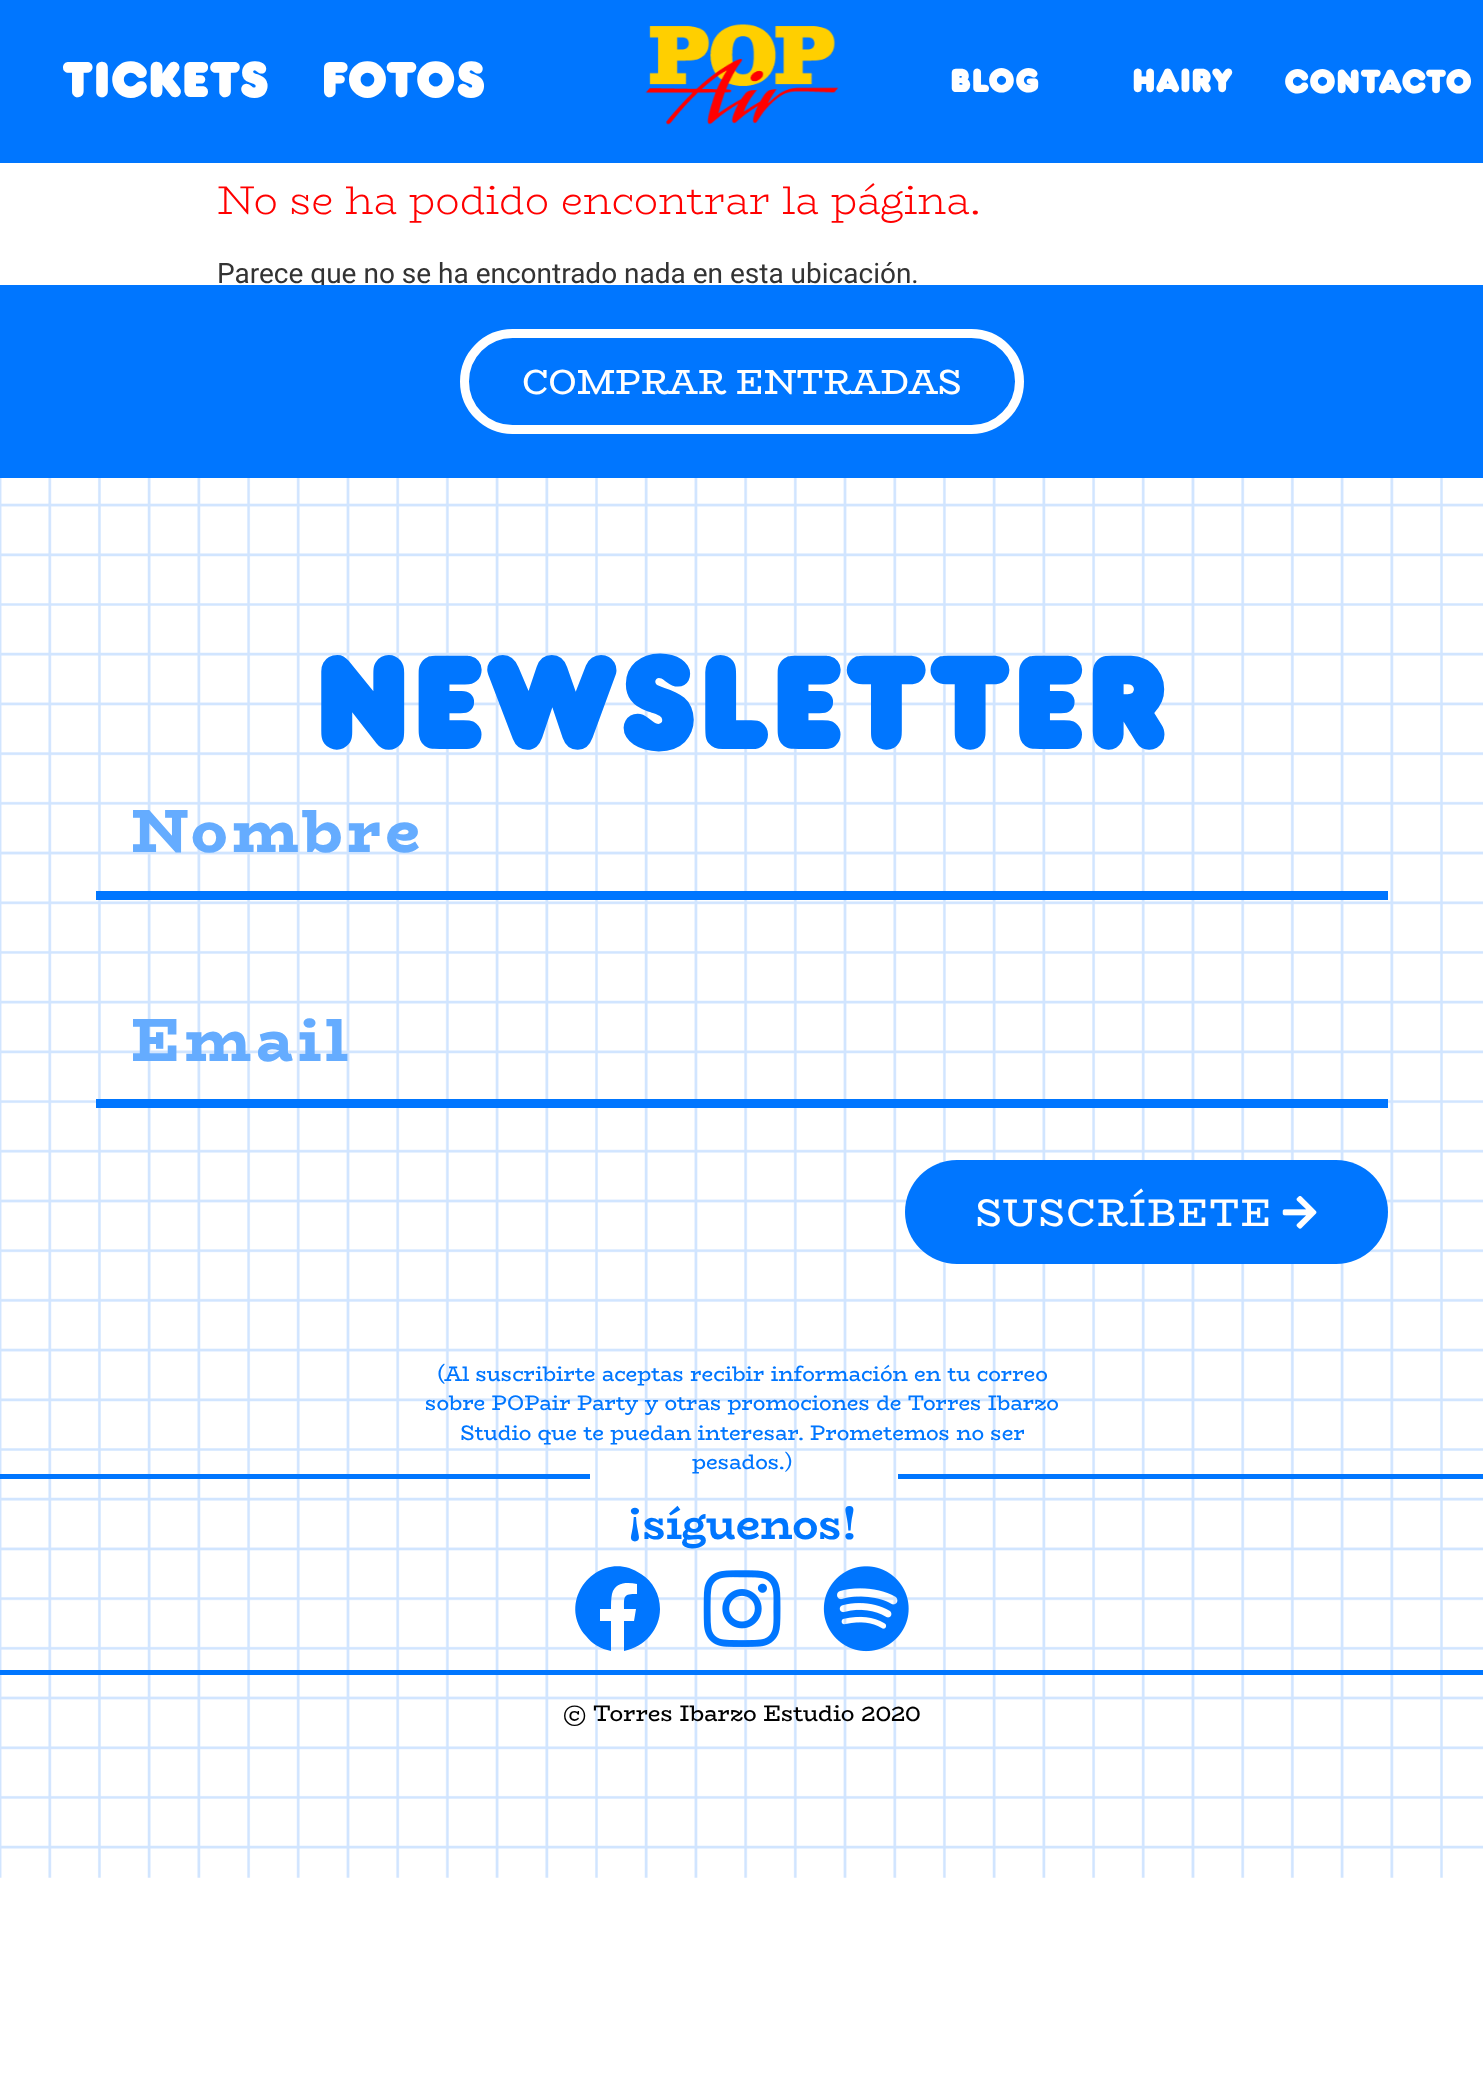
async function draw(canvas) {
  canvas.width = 1483
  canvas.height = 2080
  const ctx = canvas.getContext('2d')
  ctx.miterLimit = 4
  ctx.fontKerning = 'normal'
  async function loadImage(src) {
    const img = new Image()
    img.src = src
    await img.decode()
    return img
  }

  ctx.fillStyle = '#fff'
  ctx.fillRect(0, 0, 1483, 2080)
  ctx.fillStyle = '#0076ff'
  ctx.fillRect(0, 0, 1483, 163)
  ctx.font = '52.5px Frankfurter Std'
  ctx.fillStyle = '#fff'
  ctx.fillText('TICKETS', 62, 97)
  ctx.fillText('FOTOS', 322, 97)
  ctx.drawImage(await loadImage('image0.png'), 645, 24, 194, 101)
  ctx.font = '35px Frankfurter Std'
  ctx.fillText('BLOG', 950, 92)
  ctx.fillText('HAIRY', 1132, 92)
  ctx.fillText('CONTACTO', 1284, 93)
  ctx.font = '300 40.25px BioRhyme'
  ctx.fillStyle = '#f00'
  ctx.fillText('No se ha podido encontrar la página.', 217, 214)
  ctx.font = '28px Roboto'
  ctx.fillStyle = '#333'
  ctx.fillText('Parece que no se ha encontrado nada en esta ubicación.', 217, 283)
  ctx.fillStyle = '#0076ff'
  ctx.fillRect(0, 285, 1483, 193)
  ctx.beginPath()
  ctx.roundRect(464.5, 333.5, 555, 96, 48)
  ctx.strokeStyle = '#fff'
  ctx.lineWidth = 9
  ctx.stroke()
  ctx.font = '35px BioRhyme'
  ctx.fillStyle = '#fff'
  ctx.fillText('COMPRAR ENTRADAS', 522, 394)
  ctx.drawImage(await loadImage('image1.png'), 0, 478, 1483, 1400)
  ctx.font = '140px Frankfurter Std'
  ctx.fillStyle = '#0076ff'
  ctx.fillText('newsletter', 314, 749)
  ctx.fillRect(96, 891, 1292, 9)
  ctx.letterSpacing = '4.75px'
  ctx.font = '800 61.25px BioRhyme'
  ctx.fillStyle = '#65acff'
  ctx.fillText('Nombre', 131, 852)
  ctx.fillStyle = '#0076ff'
  ctx.fillRect(96, 1099, 1292, 9)
  ctx.fillStyle = '#65acff'
  ctx.fillText('Email', 131, 1061)
  ctx.fillStyle = '#0076ff'
  ctx.beginPath()
  ctx.roundRect(905, 1160, 483, 104, 52)
  ctx.fill()
  ctx.letterSpacing = '1.5px'
  ctx.font = '38.5px BioRhyme'
  ctx.fillStyle = '#fff'
  ctx.fillText('SUSCRÍBETE', 975, 1226)
  ctx.drawImage(await loadImage('image2.png'), 1282, 1196, 35, 33)
  ctx.letterSpacing = '0px'
  ctx.font = '21px BioRhyme'
  ctx.fillStyle = '#0076ff'
  ctx.fillText('(Al suscribirte aceptas recibir información en tu correo', 437, 1381)
  ctx.fillText('sobre POPair Party y otras promociones de Torres Ibarzo', 425, 1410)
  ctx.fillText('Studio que te puedan interesar. Prometemos no ser', 460, 1440)
  ctx.fillText('pesados.)', 692, 1469)
  ctx.fillRect(0, 1474, 590, 5)
  ctx.fillRect(898, 1474, 585, 5)
  ctx.font = 'bold 43.75px BioRhyme'
  ctx.fillText('¡síguenos!', 627, 1539)
  ctx.beginPath()
  ctx.moveTo(660, 1609)
  ctx.bezierCurveTo(660, 1629, 645, 1647, 624, 1651)
  ctx.lineTo(624, 1621)
  ctx.lineTo(634, 1621)
  ctx.lineTo(636, 1609)
  ctx.lineTo(624, 1609)
  ctx.bezierCurveTo(624, 1596, 623, 1594, 637, 1594)
  ctx.lineTo(637, 1584)
  ctx.bezierCurveTo(627, 1582, 615, 1582, 612, 1594)
  ctx.bezierCurveTo(611, 1599, 611, 1604, 611, 1609)
  ctx.lineTo(600, 1609)
  ctx.lineTo(600, 1621)
  ctx.lineTo(611, 1621)
  ctx.lineTo(611, 1651)
  ctx.bezierCurveTo(601, 1649, 592, 1644, 586, 1636)
  ctx.bezierCurveTo(554, 1599, 601, 1546, 641, 1574)
  ctx.bezierCurveTo(653, 1581, 660, 1595, 660, 1609)
  ctx.closePath()
  ctx.fill()
  ctx.drawImage(await loadImage('image3.png'), 703, 1570, 78, 77)
  ctx.drawImage(await loadImage('image4.png'), 823, 1566, 86, 86)
  ctx.fillRect(0, 1670, 1483, 5)
  ctx.font = '22.75px BioRhyme'
  ctx.fillStyle = '#000'
  ctx.fillText('© Torres Ibarzo Estudio 2020', 563, 1721)
}

draw(document.querySelector('canvas'))
